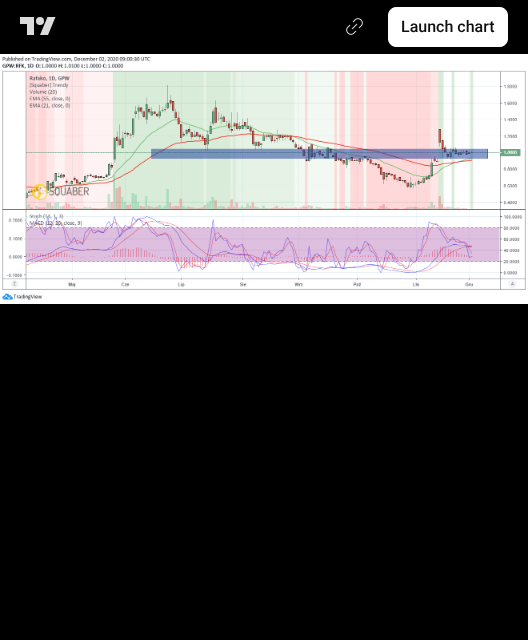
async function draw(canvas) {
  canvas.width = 528
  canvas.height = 640
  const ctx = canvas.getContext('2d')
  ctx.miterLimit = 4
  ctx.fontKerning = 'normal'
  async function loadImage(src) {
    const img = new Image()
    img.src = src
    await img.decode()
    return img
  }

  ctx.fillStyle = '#000'
  ctx.fillRect(0, 0, 528, 640)
  ctx.fillStyle = '#dbdbdb'
  ctx.beginPath()
  ctx.moveTo(34, 35)
  ctx.lineTo(27, 35)
  ctx.lineTo(27, 24)
  ctx.lineTo(20, 24)
  ctx.lineTo(20, 17)
  ctx.lineTo(34, 17)
  ctx.closePath()
  ctx.moveTo(48, 35)
  ctx.lineTo(40, 35)
  ctx.lineTo(47.5, 17)
  ctx.lineTo(55.5, 17)
  ctx.closePath()
  ctx.fill()
  ctx.beginPath()
  ctx.arc(40, 21, 4, 0, 2 * Math.PI)
  ctx.fill()
  ctx.drawImage(await loadImage('image0.png'), 346, 18, 17, 17)
  ctx.fillStyle = '#fff'
  ctx.beginPath()
  ctx.roundRect(388.5, 7.5, 119, 39, 7.5)
  ctx.fill()
  ctx.strokeStyle = '#fff'
  ctx.stroke()
  ctx.font = '500 16px Roboto'
  ctx.fillStyle = '#0f0f0f'
  ctx.fillText('Launch chart', 401, 32)
  ctx.drawImage(await loadImage('image1.png'), 0, 54, 528, 250)
}

draw(document.querySelector('canvas'))
